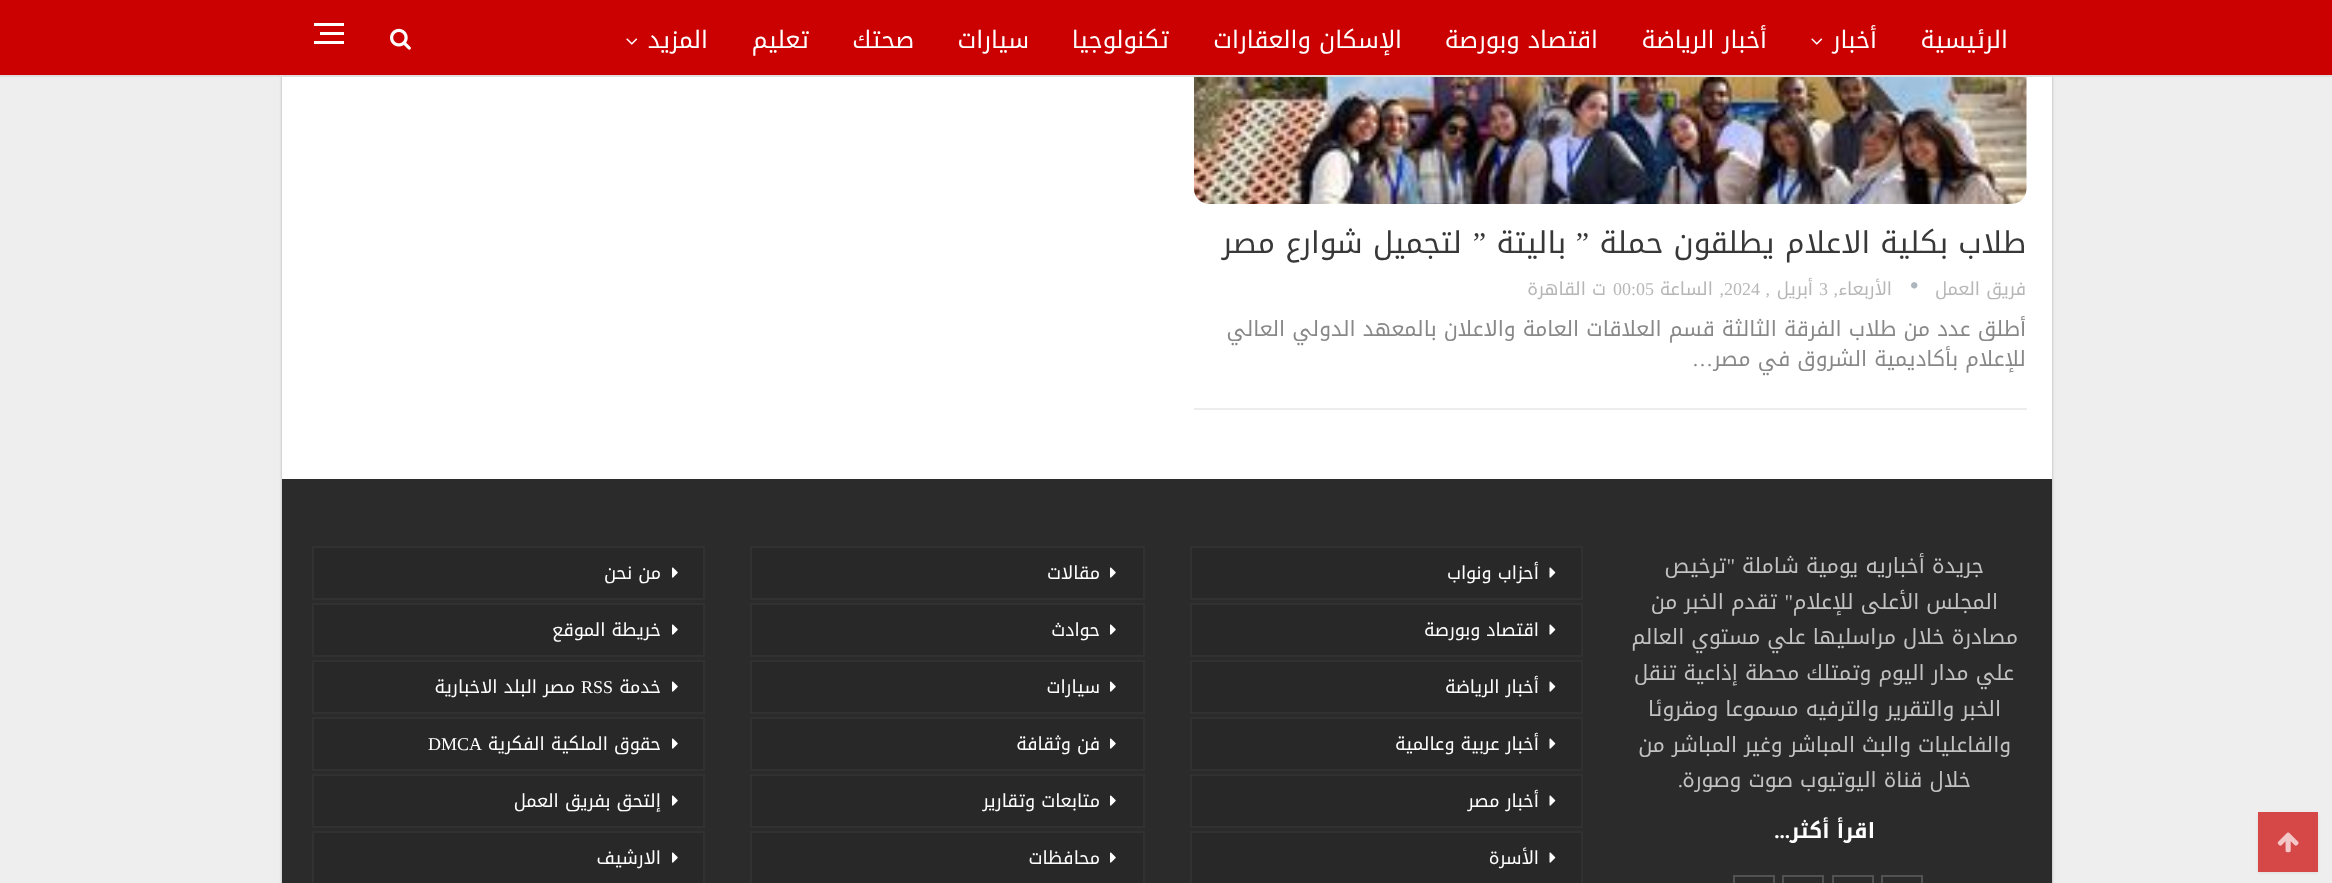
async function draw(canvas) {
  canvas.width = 2332
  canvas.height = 883
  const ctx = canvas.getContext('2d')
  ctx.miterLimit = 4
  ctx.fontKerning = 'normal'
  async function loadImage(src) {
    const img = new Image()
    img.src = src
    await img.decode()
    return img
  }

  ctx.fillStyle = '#eee'
  ctx.fillRect(0, 0, 2332, 883)
  ctx.fillStyle = '#47474717'
  ctx.filter = 'blur(1.5px)'
  ctx.beginPath()
  ctx.rect(2258, 813, 60, 60)
  ctx.fill()
  ctx.filter = 'none'
  ctx.fillStyle = '#d64747'
  ctx.fillRect(2258, 812, 60, 60)
  ctx.drawImage(await loadImage('image0.png'), 2277, 832, 22, 21)
  ctx.fillStyle = '#00000045'
  ctx.filter = 'blur(1.5px)'
  ctx.beginPath()
  ctx.rect(282, -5, 1770, 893)
  ctx.fill()
  ctx.filter = 'none'
  ctx.fillStyle = '#fff'
  ctx.fillRect(282, 77, 1770, 402)
  ctx.fillStyle = '#cb0000'
  ctx.fillRect(0, 0, 2332, 75)
  ctx.fillStyle = '#dedede'
  ctx.fillRect(0, 75, 2332, 2)
  ctx.direction = 'rtl'
  ctx.font = '24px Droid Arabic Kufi'
  ctx.fillStyle = '#fff'
  ctx.fillText('الرئيسية', 2008, 48)
  ctx.fillText('أخبار', 1877, 48)
  ctx.drawImage(await loadImage('image1.png'), 1811, 38, 12, 7)
  ctx.fillText('أخبار الرياضة', 1767, 48)
  ctx.fillText('اقتصاد وبورصة', 1598, 48)
  ctx.fillText('الإسكان والعقارات', 1402, 48)
  ctx.fillText('تكنولوجيا', 1169, 48)
  ctx.fillText('سيارات', 1029, 48)
  ctx.fillText('صحتك', 914, 48)
  ctx.fillText('تعليم', 809, 48)
  ctx.fillText('المزيد', 708, 48)
  ctx.drawImage(await loadImage('image1.png'), 626, 38, 12, 7)
  ctx.drawImage(await loadImage('image2.png'), 390, 28, 21, 22)
  ctx.fillRect(320, 32, 24, 3)
  ctx.fillRect(314, 23, 30, 3)
  ctx.fillRect(314, 41, 30, 3)
  ctx.drawImage(await loadImage('image3.png'), 1194, 77, 833, 127)
  ctx.font = '30px Droid Arabic Kufi'
  ctx.fillStyle = '#383838'
  ctx.fillText('طلاب بكلية الاعلام يطلقون حملة', 2026, 253)
  ctx.font = '30px Liberation Serif'
  ctx.fillText('”', 1589, 253)
  ctx.font = '30px Droid Arabic Kufi'
  ctx.fillText('باليتة', 1566, 253)
  ctx.font = '30px Liberation Serif'
  ctx.fillText('”', 1486, 253)
  ctx.font = '30px Droid Arabic Kufi'
  ctx.fillText('لتجميل شوارع مصر', 1462, 253)
  ctx.font = '18px Droid Arabic Kufi'
  ctx.fillStyle = '#b7b7b7'
  ctx.fillText('فريق العمل', 2026, 295)
  ctx.drawImage(await loadImage('image4.png'), 1911, 282, 7, 7)
  ctx.fillText('الأربعاء', 1892, 295)
  ctx.font = '18px Liberation Serif'
  ctx.fillText(',', 1838, 295)
  ctx.direction = 'ltr'
  ctx.fillText('3', 1819, 295)
  ctx.direction = 'rtl'
  ctx.font = '18px Droid Arabic Kufi'
  ctx.fillText('أبريل', 1813, 295)
  ctx.font = '18px Liberation Serif'
  ctx.fillText(',', 1770, 295)
  ctx.direction = 'ltr'
  ctx.fillText('2024', 1724, 295)
  ctx.direction = 'rtl'
  ctx.fillText(',', 1724, 295)
  ctx.font = '18px Droid Arabic Kufi'
  ctx.fillText('الساعة', 1713, 295)
  ctx.direction = 'ltr'
  ctx.font = '18px Liberation Serif'
  ctx.fillText('00:05', 1613, 295)
  ctx.direction = 'rtl'
  ctx.font = '18px Droid Arabic Kufi'
  ctx.fillText('ت القاهرة', 1606, 295)
  ctx.fillStyle = '#ededed'
  ctx.fillRect(1194, 408, 833, 2)
  ctx.font = '21px Droid Arabic Kufi'
  ctx.fillStyle = '#888'
  ctx.fillText('أطلق عدد من طلاب الفرقة الثالثة قسم العلاقات العامة والاعلان بالمعهد الدولي العالي', 2026, 336)
  ctx.fillText('للإعلام بأكاديمية الشروق في مصر', 2026, 366)
  ctx.font = '21px Liberation Serif'
  ctx.fillText('…', 1713, 366)
  ctx.fillStyle = '#2b2b2b'
  ctx.fillRect(282, 479, 1770, 404)
  ctx.font = '21px Droid Arabic Kufi'
  ctx.fillStyle = '#c2c2c2'
  ctx.fillText('جريدة أخباريه يومية شاملة', 1984, 573)
  ctx.font = '21px Liberation Serif'
  ctx.fillText('"', 1735, 573)
  ctx.font = '21px Droid Arabic Kufi'
  ctx.fillText('ترخيص', 1726, 573)
  ctx.fillText('المجلس الأعلى للإعلام', 1998, 609)
  ctx.font = '21px Liberation Serif'
  ctx.fillText('"', 1793, 609)
  ctx.font = '21px Droid Arabic Kufi'
  ctx.fillText('تقدم الخبر من', 1777, 609)
  ctx.fillText('مصادرة خلال مراسليها علي مستوي العالم', 2018, 644)
  ctx.fillText('علي مدار اليوم وتمتلك محطة إذاعية تنقل', 2014, 680)
  ctx.fillText('الخبر والتقرير والترفيه مسموعا ومقروئا', 2001, 716)
  ctx.fillText('والفاعليات والبث المباشر وغير المباشر من', 2011, 752)
  ctx.fillText('خلال قناة اليوتيوب صوت وصورة', 1971, 787)
  ctx.font = '21px Liberation Serif'
  ctx.fillText('.', 1683, 787)
  ctx.font = 'bold 21px Droid Arabic Kufi'
  ctx.fillStyle = '#fff'
  ctx.fillText('اقرأ أكثر', 1875, 838)
  ctx.font = 'bold 21px Liberation Serif'
  ctx.fillText('...', 1790, 838)
  ctx.strokeStyle = '#525252'
  ctx.lineWidth = 2
  ctx.strokeRect(1882, 876, 40, 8)
  ctx.strokeRect(1833, 876, 40, 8)
  ctx.strokeRect(1783, 876, 40, 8)
  ctx.strokeRect(1734, 876, 40, 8)
  ctx.fillStyle = '#282828'
  ctx.beginPath()
  ctx.rect(1191, 547, 391, 52)
  ctx.fill()
  ctx.strokeStyle = '#313131'
  ctx.stroke()
  ctx.drawImage(await loadImage('image5.png'), 1549, 567, 7, 11)
  ctx.font = '18px Droid Arabic Kufi'
  ctx.fillStyle = '#fff'
  ctx.fillText('أحزاب ونواب', 1539, 579)
  ctx.fillStyle = '#282828'
  ctx.beginPath()
  ctx.rect(1191, 604, 391, 52)
  ctx.fill()
  ctx.stroke()
  ctx.drawImage(await loadImage('image5.png'), 1549, 624, 7, 11)
  ctx.fillStyle = '#fff'
  ctx.fillText('اقتصاد وبورصة', 1539, 636)
  ctx.fillStyle = '#282828'
  ctx.beginPath()
  ctx.rect(1191, 661, 391, 52)
  ctx.fill()
  ctx.stroke()
  ctx.drawImage(await loadImage('image5.png'), 1549, 681, 7, 11)
  ctx.fillStyle = '#fff'
  ctx.fillText('أخبار الرياضة', 1539, 693)
  ctx.fillStyle = '#282828'
  ctx.beginPath()
  ctx.rect(1191, 718, 391, 52)
  ctx.fill()
  ctx.stroke()
  ctx.drawImage(await loadImage('image5.png'), 1549, 738, 7, 11)
  ctx.fillStyle = '#fff'
  ctx.fillText('أخبار عربية وعالمية', 1539, 750)
  ctx.fillStyle = '#282828'
  ctx.beginPath()
  ctx.rect(1191, 775, 391, 52)
  ctx.fill()
  ctx.stroke()
  ctx.drawImage(await loadImage('image5.png'), 1549, 795, 7, 11)
  ctx.fillStyle = '#fff'
  ctx.fillText('أخبار مصر', 1539, 807)
  ctx.fillStyle = '#282828'
  ctx.beginPath()
  ctx.rect(1191, 832, 391, 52)
  ctx.fill()
  ctx.stroke()
  ctx.drawImage(await loadImage('image5.png'), 1549, 852, 7, 11)
  ctx.fillStyle = '#fff'
  ctx.fillText('الأسرة', 1539, 864)
  ctx.fillStyle = '#282828'
  ctx.beginPath()
  ctx.rect(751, 547, 393, 52)
  ctx.fill()
  ctx.stroke()
  ctx.drawImage(await loadImage('image6.png'), 1110, 567, 6, 11)
  ctx.fillStyle = '#fff'
  ctx.fillText('مقالات', 1100, 579)
  ctx.fillStyle = '#282828'
  ctx.beginPath()
  ctx.rect(751, 604, 393, 52)
  ctx.fill()
  ctx.stroke()
  ctx.drawImage(await loadImage('image6.png'), 1110, 624, 6, 11)
  ctx.fillStyle = '#fff'
  ctx.fillText('حوادث', 1100, 636)
  ctx.fillStyle = '#282828'
  ctx.beginPath()
  ctx.rect(751, 661, 393, 52)
  ctx.fill()
  ctx.stroke()
  ctx.drawImage(await loadImage('image6.png'), 1110, 681, 6, 11)
  ctx.fillStyle = '#fff'
  ctx.fillText('سيارات', 1100, 693)
  ctx.fillStyle = '#282828'
  ctx.beginPath()
  ctx.rect(751, 718, 393, 52)
  ctx.fill()
  ctx.stroke()
  ctx.drawImage(await loadImage('image6.png'), 1110, 738, 6, 11)
  ctx.fillStyle = '#fff'
  ctx.fillText('فن وثقافة', 1100, 750)
  ctx.fillStyle = '#282828'
  ctx.beginPath()
  ctx.rect(751, 775, 393, 52)
  ctx.fill()
  ctx.stroke()
  ctx.drawImage(await loadImage('image6.png'), 1110, 795, 6, 11)
  ctx.fillStyle = '#fff'
  ctx.fillText('متابعات وتقارير', 1100, 807)
  ctx.fillStyle = '#282828'
  ctx.beginPath()
  ctx.rect(751, 832, 393, 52)
  ctx.fill()
  ctx.stroke()
  ctx.drawImage(await loadImage('image6.png'), 1110, 852, 6, 11)
  ctx.fillStyle = '#fff'
  ctx.fillText('محافظات', 1100, 864)
  ctx.fillStyle = '#282828'
  ctx.beginPath()
  ctx.rect(313, 547, 391, 52)
  ctx.fill()
  ctx.stroke()
  ctx.drawImage(await loadImage('image6.png'), 672, 567, 6, 11)
  ctx.fillStyle = '#fff'
  ctx.fillText('من نحن', 661, 579)
  ctx.fillStyle = '#282828'
  ctx.beginPath()
  ctx.rect(313, 604, 391, 52)
  ctx.fill()
  ctx.stroke()
  ctx.drawImage(await loadImage('image6.png'), 672, 624, 6, 11)
  ctx.fillStyle = '#fff'
  ctx.fillText('خريطة الموقع', 661, 636)
  ctx.fillStyle = '#282828'
  ctx.beginPath()
  ctx.rect(313, 661, 391, 52)
  ctx.fill()
  ctx.stroke()
  ctx.drawImage(await loadImage('image6.png'), 672, 681, 6, 11)
  ctx.fillStyle = '#fff'
  ctx.fillText('خدمة', 661, 693)
  ctx.direction = 'ltr'
  ctx.font = '18px Liberation Serif'
  ctx.fillText('RSS', 581, 693)
  ctx.direction = 'rtl'
  ctx.font = '18px Droid Arabic Kufi'
  ctx.fillText('مصر البلد الاخبارية', 575, 693)
  ctx.fillStyle = '#282828'
  ctx.beginPath()
  ctx.rect(313, 718, 391, 52)
  ctx.fill()
  ctx.stroke()
  ctx.drawImage(await loadImage('image6.png'), 672, 738, 6, 11)
  ctx.fillStyle = '#fff'
  ctx.fillText('حقوق الملكية الفكرية', 661, 750)
  ctx.direction = 'ltr'
  ctx.font = '18px Liberation Serif'
  ctx.fillText('DMCA', 428, 750)
  ctx.fillStyle = '#282828'
  ctx.beginPath()
  ctx.rect(313, 775, 391, 52)
  ctx.fill()
  ctx.stroke()
  ctx.drawImage(await loadImage('image6.png'), 672, 795, 6, 11)
  ctx.direction = 'rtl'
  ctx.font = '18px Droid Arabic Kufi'
  ctx.fillStyle = '#fff'
  ctx.fillText('إلتحق بفريق العمل', 661, 807)
  ctx.fillStyle = '#282828'
  ctx.beginPath()
  ctx.rect(313, 832, 391, 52)
  ctx.fill()
  ctx.stroke()
  ctx.drawImage(await loadImage('image6.png'), 672, 852, 6, 11)
  ctx.fillStyle = '#fff'
  ctx.fillText('الارشيف', 661, 864)
}

draw(document.querySelector('canvas'))
